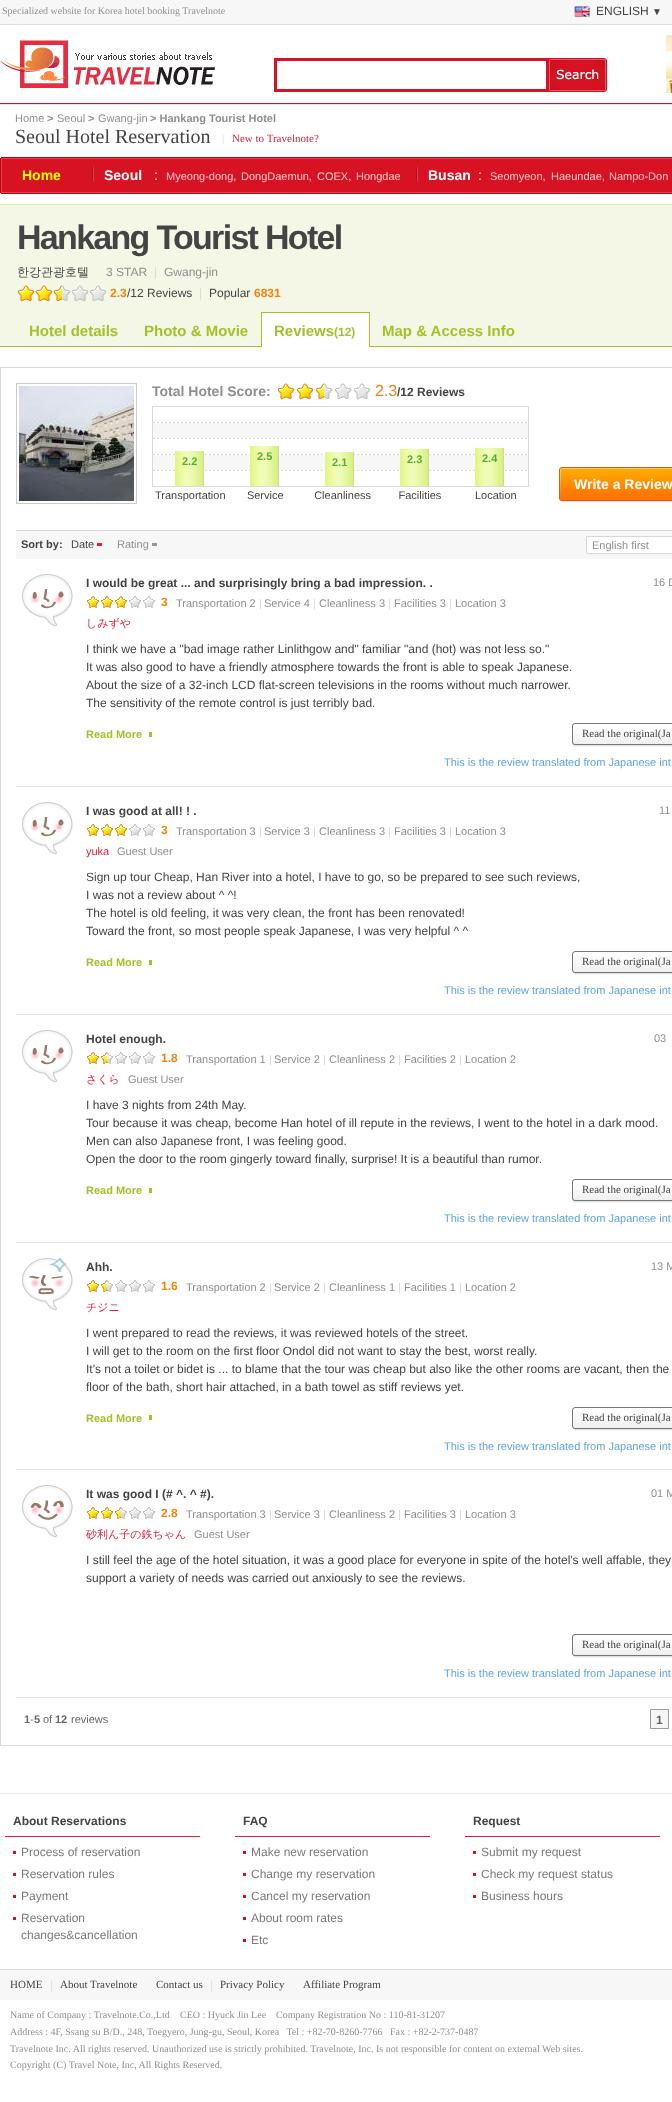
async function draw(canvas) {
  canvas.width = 672
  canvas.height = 2102
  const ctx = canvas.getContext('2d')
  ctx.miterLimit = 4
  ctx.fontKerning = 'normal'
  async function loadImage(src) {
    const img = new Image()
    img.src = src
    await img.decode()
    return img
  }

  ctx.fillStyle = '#fff'
  ctx.fillRect(0, 0, 672, 2102)
  ctx.fillStyle = '#f7f7f7'
  ctx.fillRect(0, 0, 672, 24)
  ctx.fillStyle = '#dcdcdc'
  ctx.fillRect(0, 24, 672, 1)
  ctx.font = '10px Liberation Serif'
  ctx.fillStyle = '#8f8f8f'
  ctx.fillText('Specialized website for Korea hotel booking Travelnote', 2, 14)
  ctx.drawImage(await loadImage('image0.png'), 574, 6, 16, 11)
  ctx.font = '12px Liberation Sans'
  ctx.fillStyle = '#444'
  ctx.fillText('ENGLISH', 596, 15)
  ctx.font = '10px Liberation Sans'
  ctx.fillText('▼', 652, 15)
  ctx.fillStyle = '#d61223'
  ctx.fillRect(0, 103, 672, 1)
  ctx.drawImage(await loadImage('image1.png'), 0, 40, 215, 48)
  ctx.strokeStyle = '#d61223'
  ctx.lineWidth = 3
  ctx.strokeRect(275.5, 59.5, 272, 31)
  ctx.drawImage(await loadImage('image2.png'), 549, 58, 58, 34)
  ctx.drawImage(await loadImage('image3.png'), 666, 35, 6, 58)
  ctx.fillStyle = '#e5e5e5'
  ctx.fillRect(0, 104, 672, 1)
  ctx.font = '11px Liberation Sans'
  ctx.fillStyle = '#8f8f8f'
  ctx.fillText('Home', 15, 122)
  ctx.font = 'bold 11px Liberation Sans'
  ctx.fillText('>', 47, 122)
  ctx.font = '11px Liberation Sans'
  ctx.fillText('Seoul', 57, 122)
  ctx.font = 'bold 11px Liberation Sans'
  ctx.fillText('>', 88, 122)
  ctx.font = '11px Liberation Sans'
  ctx.fillText('Gwang-jin', 98, 122)
  ctx.font = 'bold 11px Liberation Sans'
  ctx.fillText('> Hankang Tourist Hotel', 150, 122)
  ctx.font = '20px Liberation Serif'
  ctx.fillStyle = '#444'
  ctx.fillText('Seoul Hotel Reservation', 15, 143)
  ctx.font = '11px Liberation Serif'
  ctx.fillStyle = '#d9d9d9'
  ctx.fillText('|', 222, 142)
  ctx.fillStyle = '#e01e36'
  ctx.fillText('New to Travelnote?', 232, 142)
  ctx.drawImage(await loadImage('image4.png'), 2, 157, 670, 37)
  ctx.drawImage(await loadImage('image5.png'), 0, 157, 2, 37)
  ctx.font = 'bold 14px Liberation Sans'
  ctx.fillStyle = '#fcff00'
  ctx.fillText('Home', 22, 180)
  ctx.drawImage(await loadImage('image6.png'), 92, 167, 2, 15)
  ctx.fillStyle = '#fff'
  ctx.fillText('Seoul', 104, 180)
  ctx.font = '14px Liberation Sans'
  ctx.fillText(':', 154, 180)
  ctx.font = '11px Liberation Sans'
  ctx.fillStyle = '#fec8cd'
  ctx.fillText('Myeong-dong,', 166, 180)
  ctx.fillText('DongDaemun,', 241, 180)
  ctx.fillText('COEX,', 317, 180)
  ctx.fillText('Hongdae', 356, 180)
  ctx.drawImage(await loadImage('image6.png'), 416, 167, 2, 15)
  ctx.font = 'bold 14px Liberation Sans'
  ctx.fillStyle = '#fff'
  ctx.fillText('Busan', 428, 180)
  ctx.font = '14px Liberation Sans'
  ctx.fillText(':', 478, 180)
  ctx.font = '11px Liberation Sans'
  ctx.fillStyle = '#fec8cd'
  ctx.fillText('Seomyeon,', 490, 180)
  ctx.fillText('Haeundae,', 551, 180)
  ctx.fillText('Nampo-Don', 609, 180)
  ctx.fillStyle = '#f4f7e5'
  ctx.fillRect(0, 205, 672, 141)
  ctx.fillStyle = '#dfe9b5'
  ctx.fillRect(0, 204, 672, 1)
  ctx.fillStyle = '#a4c12b'
  ctx.fillRect(0, 346, 672, 1)
  ctx.letterSpacing = '-1.7px'
  ctx.font = 'bold 34px Liberation Sans'
  ctx.fillStyle = '#444'
  ctx.fillText('Hankang Tourist Hotel', 17, 249)
  ctx.letterSpacing = '0px'
  ctx.font = '500 12px WenQuanYi Zen Hei'
  ctx.fillText('한강관광호텔', 17, 276)
  ctx.font = '12px Liberation Sans'
  ctx.fillStyle = '#8f8f8f'
  ctx.fillText('3 STAR', 106, 276)
  ctx.fillStyle = '#d9d9d9'
  ctx.fillText('|', 154, 276)
  ctx.fillStyle = '#8f8f8f'
  ctx.fillText('Gwang-jin', 164, 276)
  ctx.drawImage(await loadImage('image7.png'), 17, 285, 9, 17)
  ctx.drawImage(await loadImage('image8.png'), 26, 285, 9, 17)
  ctx.drawImage(await loadImage('image7.png'), 35, 285, 9, 17)
  ctx.drawImage(await loadImage('image8.png'), 44, 285, 9, 17)
  ctx.drawImage(await loadImage('image7.png'), 53, 285, 9, 17)
  ctx.drawImage(await loadImage('image9.png'), 62, 285, 9, 17)
  ctx.drawImage(await loadImage('image10.png'), 71, 285, 9, 17)
  ctx.drawImage(await loadImage('image9.png'), 80, 285, 9, 17)
  ctx.drawImage(await loadImage('image10.png'), 89, 285, 9, 17)
  ctx.drawImage(await loadImage('image9.png'), 98, 285, 9, 17)
  ctx.font = 'bold 12px Liberation Sans'
  ctx.fillStyle = '#f3830b'
  ctx.fillText('2.3', 110, 297)
  ctx.font = '12px Liberation Sans'
  ctx.fillStyle = '#444'
  ctx.fillText('/12 Reviews', 127, 297)
  ctx.fillStyle = '#d9d9d9'
  ctx.fillText('|', 199, 297)
  ctx.fillStyle = '#444'
  ctx.fillText('Popular', 209, 297)
  ctx.font = 'bold 12px Liberation Sans'
  ctx.fillStyle = '#f3830b'
  ctx.fillText('6831', 254, 297)
  ctx.font = 'bold 15px Liberation Sans'
  ctx.fillStyle = '#a4c12b'
  ctx.fillText('Hotel details', 29, 336)
  ctx.fillText('Photo & Movie', 144, 336)
  ctx.fillStyle = '#fff'
  ctx.fillRect(262, 313, 107, 34)
  ctx.fillStyle = '#a4c12b'
  ctx.fillRect(261, 312, 109, 1)
  ctx.fillRect(369, 312, 1, 35)
  ctx.fillRect(261, 312, 1, 35)
  ctx.fillText('Reviews', 274, 336)
  ctx.font = 'bold 12px Liberation Sans'
  ctx.fillText('(12)', 334, 336)
  ctx.font = 'bold 15px Liberation Sans'
  ctx.fillText('Map & Access Info', 382, 336)
  ctx.strokeStyle = '#d9d9d9'
  ctx.lineWidth = 1
  ctx.strokeRect(0.5, 367.5, 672, 1378)
  ctx.strokeStyle = '#cacaca'
  ctx.strokeRect(16.5, 383.5, 120, 120)
  ctx.drawImage(await loadImage('image11.png'), 19, 386, 115, 115)
  ctx.font = 'bold 14px Liberation Sans'
  ctx.fillStyle = '#8f8f8f'
  ctx.fillText('Total Hotel Score:', 152, 396)
  ctx.drawImage(await loadImage('image12.png'), 277, 383, 9, 17)
  ctx.drawImage(await loadImage('image13.png'), 286, 383, 9, 17)
  ctx.drawImage(await loadImage('image12.png'), 296, 383, 9, 17)
  ctx.drawImage(await loadImage('image13.png'), 305, 383, 9, 17)
  ctx.drawImage(await loadImage('image12.png'), 315, 383, 9, 17)
  ctx.drawImage(await loadImage('image14.png'), 324, 383, 9, 16)
  ctx.drawImage(await loadImage('image15.png'), 334, 383, 9, 17)
  ctx.drawImage(await loadImage('image14.png'), 343, 383, 9, 16)
  ctx.drawImage(await loadImage('image15.png'), 353, 383, 9, 17)
  ctx.drawImage(await loadImage('image14.png'), 362, 383, 9, 16)
  ctx.font = '16px Liberation Sans'
  ctx.fillStyle = '#f3830b'
  ctx.fillText('2.3', 375, 396)
  ctx.font = 'bold 12px Liberation Sans'
  ctx.fillStyle = '#444'
  ctx.fillText('/12 Reviews', 397, 396)
  ctx.drawImage(await loadImage('image16.png'), 152, 406, 377, 81)
  ctx.drawImage(await loadImage('image17.png'), 175, 451, 29, 35)
  ctx.font = 'bold 11px Liberation Sans'
  ctx.fillStyle = '#54af27'
  ctx.fillText('2.2', 182, 465)
  ctx.drawImage(await loadImage('image18.png'), 250, 446, 29, 40)
  ctx.fillText('2.5', 257, 460)
  ctx.drawImage(await loadImage('image19.png'), 325, 452, 29, 34)
  ctx.fillText('2.1', 332, 466)
  ctx.drawImage(await loadImage('image20.png'), 400, 449, 29, 37)
  ctx.fillText('2.3', 407, 463)
  ctx.drawImage(await loadImage('image21.png'), 475, 448, 29, 38)
  ctx.fillText('2.4', 482, 462)
  ctx.font = '11px Liberation Sans'
  ctx.fillStyle = '#444'
  ctx.fillText('Transportation       Service          Cleanliness         Facilities           Location', 155, 499)
  ctx.drawImage(await loadImage('image22.png'), 559, 467, 6, 36)
  ctx.drawImage(await loadImage('image23.png'), 565, 467, 107, 36)
  ctx.font = 'bold 14px Liberation Sans'
  ctx.fillStyle = '#fff'
  ctx.fillText('Write a Review', 574, 489)
  ctx.fillStyle = '#f7f7f7'
  ctx.fillRect(16, 531, 656, 28)
  ctx.fillStyle = '#d9d9d9'
  ctx.fillRect(16, 530, 656, 1)
  ctx.font = 'bold 11px Liberation Sans'
  ctx.fillStyle = '#444'
  ctx.fillText('Sort by:', 21, 548)
  ctx.fillStyle = '#e01e36'
  ctx.fillRect(97, 543, 5, 3)
  ctx.font = '11px Liberation Sans'
  ctx.fillStyle = '#444'
  ctx.fillText('Date', 71, 548)
  ctx.fillStyle = '#949494'
  ctx.fillRect(152, 543, 5, 3)
  ctx.fillStyle = '#8f8f8f'
  ctx.fillText('Rating', 117, 548)
  ctx.fillStyle = '#fff'
  ctx.beginPath()
  ctx.rect(586.5, 536.5, 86, 17)
  ctx.fill()
  ctx.strokeStyle = '#d9d9d9'
  ctx.stroke()
  ctx.fillStyle = '#8f8f8f'
  ctx.fillText('English first', 592, 549)
  ctx.fillStyle = '#e7e7e7'
  ctx.fillRect(16, 786, 656, 1)
  ctx.drawImage(await loadImage('image24.png'), 22, 574, 51, 53)
  ctx.font = 'bold 12px Liberation Sans'
  ctx.fillStyle = '#444'
  ctx.fillText('I would be great ... and surprisingly bring a bad impression. .', 86, 587)
  ctx.font = '11px Liberation Sans'
  ctx.fillStyle = '#8f8f8f'
  ctx.fillText('16 D', 653, 586)
  ctx.drawImage(await loadImage('image25.png'), 87, 596, 6, 12)
  ctx.drawImage(await loadImage('image26.png'), 93, 596, 6, 12)
  ctx.drawImage(await loadImage('image25.png'), 101, 596, 6, 12)
  ctx.drawImage(await loadImage('image26.png'), 107, 596, 6, 12)
  ctx.drawImage(await loadImage('image25.png'), 115, 596, 6, 12)
  ctx.drawImage(await loadImage('image26.png'), 121, 596, 6, 12)
  ctx.drawImage(await loadImage('image27.png'), 129, 596, 6, 12)
  ctx.drawImage(await loadImage('image28.png'), 135, 596, 6, 12)
  ctx.drawImage(await loadImage('image27.png'), 143, 596, 6, 12)
  ctx.drawImage(await loadImage('image28.png'), 149, 596, 6, 12)
  ctx.font = 'bold 12px Liberation Sans'
  ctx.fillStyle = '#f3830b'
  ctx.fillText('3', 161, 606)
  ctx.font = '11px Liberation Sans'
  ctx.fillStyle = '#8f8f8f'
  ctx.fillText('Transportation 2', 176, 607)
  ctx.fillStyle = '#d9d9d9'
  ctx.fillText('|', 259, 607)
  ctx.fillStyle = '#8f8f8f'
  ctx.fillText('Service 4', 264, 607)
  ctx.fillStyle = '#d9d9d9'
  ctx.fillText('|', 313, 607)
  ctx.fillStyle = '#8f8f8f'
  ctx.fillText('Cleanliness 3', 319, 607)
  ctx.fillStyle = '#d9d9d9'
  ctx.fillText('|', 388, 607)
  ctx.fillStyle = '#8f8f8f'
  ctx.fillText('Facilities 3', 394, 607)
  ctx.fillStyle = '#d9d9d9'
  ctx.fillText('|', 449, 607)
  ctx.fillStyle = '#8f8f8f'
  ctx.fillText('Location 3', 455, 607)
  ctx.font = '500 11px WenQuanYi Zen Hei'
  ctx.fillStyle = '#e01e36'
  ctx.fillText('しみずや', 86, 627)
  ctx.font = '12px Liberation Sans'
  ctx.fillStyle = '#444'
  ctx.fillText('I think we have a "bad image rather Linlithgow and" familiar "and (hot) was not less so."', 86, 653)
  ctx.fillText('It was also good to have a friendly atmosphere towards the front is able to speak Japanese.', 86, 671)
  ctx.fillText('About the size of a 32-inch LCD flat-screen televisions in the rooms without much narrower.', 86, 689)
  ctx.fillText('The sensitivity of the remote control is just terribly bad.', 86, 707)
  ctx.fillStyle = '#a4c12b'
  ctx.fillRect(149, 732, 3, 5)
  ctx.font = 'bold 11px Liberation Sans'
  ctx.fillText('Read More', 86, 738)
  ctx.drawImage(await loadImage('image29.png'), 572, 723, 3, 24)
  ctx.drawImage(await loadImage('image30.png'), 575, 723, 97, 24)
  ctx.font = '11px Liberation Serif'
  ctx.fillStyle = '#444'
  ctx.fillText('Read the original(Ja', 582, 737)
  ctx.font = '11px Liberation Sans'
  ctx.fillStyle = '#5fa4e4'
  ctx.fillText('This is the review translated from Japanese int', 444, 766)
  ctx.fillStyle = '#e7e7e7'
  ctx.fillRect(16, 1014, 656, 1)
  ctx.drawImage(await loadImage('image24.png'), 22, 802, 51, 53)
  ctx.font = 'bold 12px Liberation Sans'
  ctx.fillStyle = '#444'
  ctx.fillText('I was good at all! ! .', 86, 815)
  ctx.font = '11px Liberation Sans'
  ctx.fillStyle = '#8f8f8f'
  ctx.fillText('11', 659, 814)
  ctx.drawImage(await loadImage('image25.png'), 87, 824, 6, 12)
  ctx.drawImage(await loadImage('image26.png'), 93, 824, 6, 12)
  ctx.drawImage(await loadImage('image25.png'), 101, 824, 6, 12)
  ctx.drawImage(await loadImage('image26.png'), 107, 824, 6, 12)
  ctx.drawImage(await loadImage('image25.png'), 115, 824, 6, 12)
  ctx.drawImage(await loadImage('image26.png'), 121, 824, 6, 12)
  ctx.drawImage(await loadImage('image27.png'), 129, 824, 6, 12)
  ctx.drawImage(await loadImage('image28.png'), 135, 824, 6, 12)
  ctx.drawImage(await loadImage('image27.png'), 143, 824, 6, 12)
  ctx.drawImage(await loadImage('image28.png'), 149, 824, 6, 12)
  ctx.font = 'bold 12px Liberation Sans'
  ctx.fillStyle = '#f3830b'
  ctx.fillText('3', 161, 834)
  ctx.font = '11px Liberation Sans'
  ctx.fillStyle = '#8f8f8f'
  ctx.fillText('Transportation 3', 176, 835)
  ctx.fillStyle = '#d9d9d9'
  ctx.fillText('|', 259, 835)
  ctx.fillStyle = '#8f8f8f'
  ctx.fillText('Service 3', 264, 835)
  ctx.fillStyle = '#d9d9d9'
  ctx.fillText('|', 313, 835)
  ctx.fillStyle = '#8f8f8f'
  ctx.fillText('Cleanliness 3', 319, 835)
  ctx.fillStyle = '#d9d9d9'
  ctx.fillText('|', 388, 835)
  ctx.fillStyle = '#8f8f8f'
  ctx.fillText('Facilities 3', 394, 835)
  ctx.fillStyle = '#d9d9d9'
  ctx.fillText('|', 449, 835)
  ctx.fillStyle = '#8f8f8f'
  ctx.fillText('Location 3', 455, 835)
  ctx.fillStyle = '#e01e36'
  ctx.fillText('yuka', 86, 855)
  ctx.fillStyle = '#8f8f8f'
  ctx.fillText('Guest User', 117, 855)
  ctx.font = '12px Liberation Sans'
  ctx.fillStyle = '#444'
  ctx.fillText('Sign up tour Cheap, Han River into a hotel, I have to go, so be prepared to see such reviews,', 86, 881)
  ctx.fillText('I was not a review about ^ ^!', 86, 899)
  ctx.fillText('The hotel is old feeling, it was very clean, the front has been renovated!', 86, 917)
  ctx.fillText('Toward the front, so most people speak Japanese, I was very helpful ^ ^', 86, 935)
  ctx.fillStyle = '#a4c12b'
  ctx.fillRect(149, 960, 3, 5)
  ctx.font = 'bold 11px Liberation Sans'
  ctx.fillText('Read More', 86, 966)
  ctx.drawImage(await loadImage('image29.png'), 572, 951, 3, 24)
  ctx.drawImage(await loadImage('image30.png'), 575, 951, 97, 24)
  ctx.font = '11px Liberation Serif'
  ctx.fillStyle = '#444'
  ctx.fillText('Read the original(Ja', 582, 965)
  ctx.font = '11px Liberation Sans'
  ctx.fillStyle = '#5fa4e4'
  ctx.fillText('This is the review translated from Japanese int', 444, 994)
  ctx.fillStyle = '#e7e7e7'
  ctx.fillRect(16, 1242, 656, 1)
  ctx.drawImage(await loadImage('image24.png'), 22, 1030, 51, 53)
  ctx.font = 'bold 12px Liberation Sans'
  ctx.fillStyle = '#444'
  ctx.fillText('Hotel enough.', 86, 1043)
  ctx.font = '11px Liberation Sans'
  ctx.fillStyle = '#8f8f8f'
  ctx.fillText('03', 654, 1042)
  ctx.drawImage(await loadImage('image25.png'), 87, 1052, 6, 12)
  ctx.drawImage(await loadImage('image26.png'), 93, 1052, 6, 12)
  ctx.drawImage(await loadImage('image25.png'), 101, 1052, 6, 12)
  ctx.drawImage(await loadImage('image28.png'), 107, 1052, 6, 12)
  ctx.drawImage(await loadImage('image27.png'), 115, 1052, 6, 12)
  ctx.drawImage(await loadImage('image28.png'), 121, 1052, 6, 12)
  ctx.drawImage(await loadImage('image27.png'), 129, 1052, 6, 12)
  ctx.drawImage(await loadImage('image28.png'), 135, 1052, 6, 12)
  ctx.drawImage(await loadImage('image27.png'), 143, 1052, 6, 12)
  ctx.drawImage(await loadImage('image28.png'), 149, 1052, 6, 12)
  ctx.font = 'bold 12px Liberation Sans'
  ctx.fillStyle = '#f3830b'
  ctx.fillText('1.8', 161, 1062)
  ctx.font = '11px Liberation Sans'
  ctx.fillStyle = '#8f8f8f'
  ctx.fillText('Transportation 1', 186, 1063)
  ctx.fillStyle = '#d9d9d9'
  ctx.fillText('|', 269, 1063)
  ctx.fillStyle = '#8f8f8f'
  ctx.fillText('Service 2', 274, 1063)
  ctx.fillStyle = '#d9d9d9'
  ctx.fillText('|', 323, 1063)
  ctx.fillStyle = '#8f8f8f'
  ctx.fillText('Cleanliness 2', 329, 1063)
  ctx.fillStyle = '#d9d9d9'
  ctx.fillText('|', 398, 1063)
  ctx.fillStyle = '#8f8f8f'
  ctx.fillText('Facilities 2', 404, 1063)
  ctx.fillStyle = '#d9d9d9'
  ctx.fillText('|', 459, 1063)
  ctx.fillStyle = '#8f8f8f'
  ctx.fillText('Location 2', 465, 1063)
  ctx.font = '500 11px WenQuanYi Zen Hei'
  ctx.fillStyle = '#e01e36'
  ctx.fillText('さくら', 86, 1083)
  ctx.font = '11px Liberation Sans'
  ctx.fillStyle = '#8f8f8f'
  ctx.fillText('Guest User', 128, 1083)
  ctx.font = '12px Liberation Sans'
  ctx.fillStyle = '#444'
  ctx.fillText('I have 3 nights from 24th May.', 86, 1109)
  ctx.fillText('Tour because it was cheap, become Han hotel of ill repute in the reviews, I went to the hotel in a dark mood.', 86, 1127)
  ctx.fillText('Men can also Japanese front, I was feeling good.', 86, 1145)
  ctx.fillText('Open the door to the room gingerly toward finally, surprise! It is a beautiful than rumor.', 86, 1163)
  ctx.fillStyle = '#a4c12b'
  ctx.fillRect(149, 1188, 3, 5)
  ctx.font = 'bold 11px Liberation Sans'
  ctx.fillText('Read More', 86, 1194)
  ctx.drawImage(await loadImage('image29.png'), 572, 1179, 3, 24)
  ctx.drawImage(await loadImage('image30.png'), 575, 1179, 97, 24)
  ctx.font = '11px Liberation Serif'
  ctx.fillStyle = '#444'
  ctx.fillText('Read the original(Ja', 582, 1193)
  ctx.font = '11px Liberation Sans'
  ctx.fillStyle = '#5fa4e4'
  ctx.fillText('This is the review translated from Japanese int', 444, 1222)
  ctx.fillStyle = '#e7e7e7'
  ctx.fillRect(16, 1469, 656, 1)
  ctx.drawImage(await loadImage('image31.png'), 22, 1258, 51, 53)
  ctx.font = 'bold 12px Liberation Sans'
  ctx.fillStyle = '#444'
  ctx.fillText('Ahh.', 86, 1271)
  ctx.font = '11px Liberation Sans'
  ctx.fillStyle = '#8f8f8f'
  ctx.fillText('13 M', 651, 1270)
  ctx.drawImage(await loadImage('image25.png'), 87, 1280, 6, 12)
  ctx.drawImage(await loadImage('image26.png'), 93, 1280, 6, 12)
  ctx.drawImage(await loadImage('image25.png'), 101, 1280, 6, 12)
  ctx.drawImage(await loadImage('image28.png'), 107, 1280, 6, 12)
  ctx.drawImage(await loadImage('image27.png'), 115, 1280, 6, 12)
  ctx.drawImage(await loadImage('image28.png'), 121, 1280, 6, 12)
  ctx.drawImage(await loadImage('image27.png'), 129, 1280, 6, 12)
  ctx.drawImage(await loadImage('image28.png'), 135, 1280, 6, 12)
  ctx.drawImage(await loadImage('image27.png'), 143, 1280, 6, 12)
  ctx.drawImage(await loadImage('image28.png'), 149, 1280, 6, 12)
  ctx.font = 'bold 12px Liberation Sans'
  ctx.fillStyle = '#f3830b'
  ctx.fillText('1.6', 161, 1290)
  ctx.font = '11px Liberation Sans'
  ctx.fillStyle = '#8f8f8f'
  ctx.fillText('Transportation 2', 186, 1291)
  ctx.fillStyle = '#d9d9d9'
  ctx.fillText('|', 269, 1291)
  ctx.fillStyle = '#8f8f8f'
  ctx.fillText('Service 2', 274, 1291)
  ctx.fillStyle = '#d9d9d9'
  ctx.fillText('|', 323, 1291)
  ctx.fillStyle = '#8f8f8f'
  ctx.fillText('Cleanliness 1', 329, 1291)
  ctx.fillStyle = '#d9d9d9'
  ctx.fillText('|', 398, 1291)
  ctx.fillStyle = '#8f8f8f'
  ctx.fillText('Facilities 1', 404, 1291)
  ctx.fillStyle = '#d9d9d9'
  ctx.fillText('|', 459, 1291)
  ctx.fillStyle = '#8f8f8f'
  ctx.fillText('Location 2', 465, 1291)
  ctx.font = '500 11px WenQuanYi Zen Hei'
  ctx.fillStyle = '#e01e36'
  ctx.fillText('チジニ', 86, 1311)
  ctx.font = '12px Liberation Sans'
  ctx.fillStyle = '#444'
  ctx.fillText('I went prepared to read the reviews, it was reviewed hotels of the street.', 86, 1337)
  ctx.fillText('I will get to the room on the first floor Ondol did not want to stay the best, worst really.', 86, 1355)
  ctx.fillText('It\'s not a toilet or bidet is ... to blame that the tour was cheap but also like the other rooms are vacant, then the', 86, 1373)
  ctx.fillText('floor of the bath, short hair attached, in a bath towel as stiff reviews yet.', 86, 1391)
  ctx.fillStyle = '#a4c12b'
  ctx.fillRect(149, 1415, 3, 5)
  ctx.font = 'bold 11px Liberation Sans'
  ctx.fillText('Read More', 86, 1422)
  ctx.drawImage(await loadImage('image29.png'), 572, 1407, 3, 24)
  ctx.drawImage(await loadImage('image30.png'), 575, 1407, 97, 24)
  ctx.font = '11px Liberation Serif'
  ctx.fillStyle = '#444'
  ctx.fillText('Read the original(Ja', 582, 1421)
  ctx.font = '11px Liberation Sans'
  ctx.fillStyle = '#5fa4e4'
  ctx.fillText('This is the review translated from Japanese int', 444, 1450)
  ctx.fillStyle = '#e7e7e7'
  ctx.fillRect(16, 1697, 656, 1)
  ctx.drawImage(await loadImage('image32.png'), 22, 1485, 51, 53)
  ctx.font = 'bold 12px Liberation Sans'
  ctx.fillStyle = '#444'
  ctx.fillText('It was good I (# ^. ^ #).', 86, 1498)
  ctx.font = '11px Liberation Sans'
  ctx.fillStyle = '#8f8f8f'
  ctx.fillText('01 M', 651, 1497)
  ctx.drawImage(await loadImage('image25.png'), 87, 1507, 6, 12)
  ctx.drawImage(await loadImage('image26.png'), 93, 1507, 6, 12)
  ctx.drawImage(await loadImage('image25.png'), 101, 1507, 6, 12)
  ctx.drawImage(await loadImage('image26.png'), 107, 1507, 6, 12)
  ctx.drawImage(await loadImage('image25.png'), 115, 1507, 6, 12)
  ctx.drawImage(await loadImage('image28.png'), 121, 1507, 6, 12)
  ctx.drawImage(await loadImage('image27.png'), 129, 1507, 6, 12)
  ctx.drawImage(await loadImage('image28.png'), 135, 1507, 6, 12)
  ctx.drawImage(await loadImage('image27.png'), 143, 1507, 6, 12)
  ctx.drawImage(await loadImage('image28.png'), 149, 1507, 6, 12)
  ctx.font = 'bold 12px Liberation Sans'
  ctx.fillStyle = '#f3830b'
  ctx.fillText('2.8', 161, 1517)
  ctx.font = '11px Liberation Sans'
  ctx.fillStyle = '#8f8f8f'
  ctx.fillText('Transportation 3', 186, 1518)
  ctx.fillStyle = '#d9d9d9'
  ctx.fillText('|', 269, 1518)
  ctx.fillStyle = '#8f8f8f'
  ctx.fillText('Service 3', 274, 1518)
  ctx.fillStyle = '#d9d9d9'
  ctx.fillText('|', 323, 1518)
  ctx.fillStyle = '#8f8f8f'
  ctx.fillText('Cleanliness 2', 329, 1518)
  ctx.fillStyle = '#d9d9d9'
  ctx.fillText('|', 398, 1518)
  ctx.fillStyle = '#8f8f8f'
  ctx.fillText('Facilities 3', 404, 1518)
  ctx.fillStyle = '#d9d9d9'
  ctx.fillText('|', 459, 1518)
  ctx.fillStyle = '#8f8f8f'
  ctx.fillText('Location 3', 465, 1518)
  ctx.font = '500 11px WenQuanYi Zen Hei'
  ctx.fillStyle = '#e01e36'
  ctx.fillText('砂利ん子の鉄ちゃん', 86, 1538)
  ctx.font = '11px Liberation Sans'
  ctx.fillStyle = '#8f8f8f'
  ctx.fillText('Guest User', 194, 1538)
  ctx.font = '12px Liberation Sans'
  ctx.fillStyle = '#444'
  ctx.fillText('I still feel the age of the hotel situation, it was a good place for everyone in spite of the hotel\'s well affable, they', 86, 1564)
  ctx.fillText('support a variety of needs was carried out anxiously to see the reviews.', 86, 1582)
  ctx.drawImage(await loadImage('image29.png'), 572, 1634, 3, 24)
  ctx.drawImage(await loadImage('image30.png'), 575, 1634, 97, 24)
  ctx.font = '11px Liberation Serif'
  ctx.fillText('Read the original(Ja', 582, 1648)
  ctx.font = '11px Liberation Sans'
  ctx.fillStyle = '#5fa4e4'
  ctx.fillText('This is the review translated from Japanese int', 444, 1677)
  ctx.font = 'bold 11px Liberation Sans'
  ctx.fillStyle = '#666'
  ctx.fillText('1', 24, 1723)
  ctx.font = '11px Liberation Sans'
  ctx.fillText('-', 30, 1723)
  ctx.font = 'bold 11px Liberation Sans'
  ctx.fillText('5', 34, 1723)
  ctx.font = '11px Liberation Sans'
  ctx.fillText('of', 43, 1723)
  ctx.font = 'bold 11px Liberation Sans'
  ctx.fillText('12', 55, 1723)
  ctx.font = '11px Liberation Sans'
  ctx.fillText('reviews', 71, 1723)
  ctx.fillStyle = '#f6f6f6'
  ctx.beginPath()
  ctx.rect(650.5, 1709.5, 18, 19)
  ctx.fill()
  ctx.strokeStyle = '#9c9c9c'
  ctx.stroke()
  ctx.font = 'bold 12px Liberation Sans'
  ctx.fillStyle = '#666'
  ctx.fillText('1', 656, 1724)
  ctx.fillStyle = '#eaeaea'
  ctx.fillRect(0, 1793, 672, 1)
  ctx.fillStyle = '#e01e36'
  ctx.fillRect(5, 1836, 195, 1)
  ctx.fillStyle = '#444'
  ctx.fillText('About Reservations', 13, 1825)
  ctx.fillStyle = '#d71020'
  ctx.fillRect(13, 1851, 3, 3)
  ctx.font = '12px Liberation Sans'
  ctx.fillStyle = '#7a7a7a'
  ctx.fillText('Process of reservation', 21, 1856)
  ctx.fillStyle = '#d71020'
  ctx.fillRect(13, 1873, 3, 3)
  ctx.fillStyle = '#7a7a7a'
  ctx.fillText('Reservation rules', 21, 1878)
  ctx.fillStyle = '#d71020'
  ctx.fillRect(13, 1895, 3, 3)
  ctx.fillStyle = '#7a7a7a'
  ctx.fillText('Payment', 21, 1900)
  ctx.fillStyle = '#d71020'
  ctx.fillRect(13, 1917, 3, 3)
  ctx.fillStyle = '#7a7a7a'
  ctx.fillText('Reservation', 21, 1922)
  ctx.fillText('changes&cancellation', 21, 1939)
  ctx.fillStyle = '#e01e36'
  ctx.fillRect(235, 1836, 195, 1)
  ctx.font = 'bold 12px Liberation Sans'
  ctx.fillStyle = '#444'
  ctx.fillText('FAQ', 243, 1825)
  ctx.fillStyle = '#d71020'
  ctx.fillRect(243, 1851, 3, 3)
  ctx.font = '12px Liberation Sans'
  ctx.fillStyle = '#7a7a7a'
  ctx.fillText('Make new reservation', 251, 1856)
  ctx.fillStyle = '#d71020'
  ctx.fillRect(243, 1873, 3, 3)
  ctx.fillStyle = '#7a7a7a'
  ctx.fillText('Change my reservation', 251, 1878)
  ctx.fillStyle = '#d71020'
  ctx.fillRect(243, 1895, 3, 3)
  ctx.fillStyle = '#7a7a7a'
  ctx.fillText('Cancel my reservation', 251, 1900)
  ctx.fillStyle = '#d71020'
  ctx.fillRect(243, 1917, 3, 3)
  ctx.fillStyle = '#7a7a7a'
  ctx.fillText('About room rates', 251, 1922)
  ctx.fillStyle = '#d71020'
  ctx.fillRect(243, 1939, 3, 3)
  ctx.fillStyle = '#7a7a7a'
  ctx.fillText('Etc', 251, 1944)
  ctx.fillStyle = '#e01e36'
  ctx.fillRect(465, 1836, 195, 1)
  ctx.font = 'bold 12px Liberation Sans'
  ctx.fillStyle = '#444'
  ctx.fillText('Request', 473, 1825)
  ctx.fillStyle = '#d71020'
  ctx.fillRect(473, 1851, 3, 3)
  ctx.font = '12px Liberation Sans'
  ctx.fillStyle = '#7a7a7a'
  ctx.fillText('Submit my request', 481, 1856)
  ctx.fillStyle = '#d71020'
  ctx.fillRect(473, 1873, 3, 3)
  ctx.fillStyle = '#7a7a7a'
  ctx.fillText('Check my request status', 481, 1878)
  ctx.fillStyle = '#d71020'
  ctx.fillRect(473, 1895, 3, 3)
  ctx.fillStyle = '#7a7a7a'
  ctx.fillText('Business hours', 481, 1900)
  ctx.fillStyle = '#f7f7f7'
  ctx.fillRect(0, 1970, 672, 30)
  ctx.fillStyle = '#d9d9d9'
  ctx.fillRect(0, 1969, 672, 1)
  ctx.font = '11px Liberation Serif'
  ctx.fillStyle = '#444'
  ctx.fillText('HOME', 10, 1988)
  ctx.font = '500 11px WenQuanYi Zen Hei'
  ctx.fillStyle = '#d9d9d9'
  ctx.fillText('｜', 46, 1989)
  ctx.font = '11px Liberation Serif'
  ctx.fillStyle = '#444'
  ctx.fillText('About Travelnote', 60, 1988)
  ctx.fillText('Contact us', 156, 1988)
  ctx.font = '500 11px WenQuanYi Zen Hei'
  ctx.fillStyle = '#d9d9d9'
  ctx.fillText('｜', 206, 1989)
  ctx.font = '11px Liberation Serif'
  ctx.fillStyle = '#444'
  ctx.fillText('Privacy Policy', 220, 1988)
  ctx.fillText('Affiliate Program', 303, 1988)
  ctx.font = '10px Liberation Serif'
  ctx.fillStyle = '#8f8f8f'
  ctx.fillText('Name of Company : Travelnote.Co.,Ltd', 10, 2018)
  ctx.fillText('CEO : Hyuck Jin Lee', 180, 2018)
  ctx.fillText('Company Registration No : 110-81-31207', 276, 2018)
  ctx.fillText('Address : 4F, Ssang su B/D., 248, Toegyero, Jung-gu, Seoul, Korea   Tel : +82-70-8260-7766   Fax : +82-2-737-0487', 10, 2035)
  ctx.fillText('Travelnote Inc. All rights reserved. Unauthorized use is strictly prohibited. Travelnote, Inc. Is not responsible for content on external Web sites.', 10, 2052)
  ctx.fillText('Copyright (C) Travel Note, Inc, All Rights Reserved.', 10, 2068)
}

draw(document.querySelector('canvas'))
